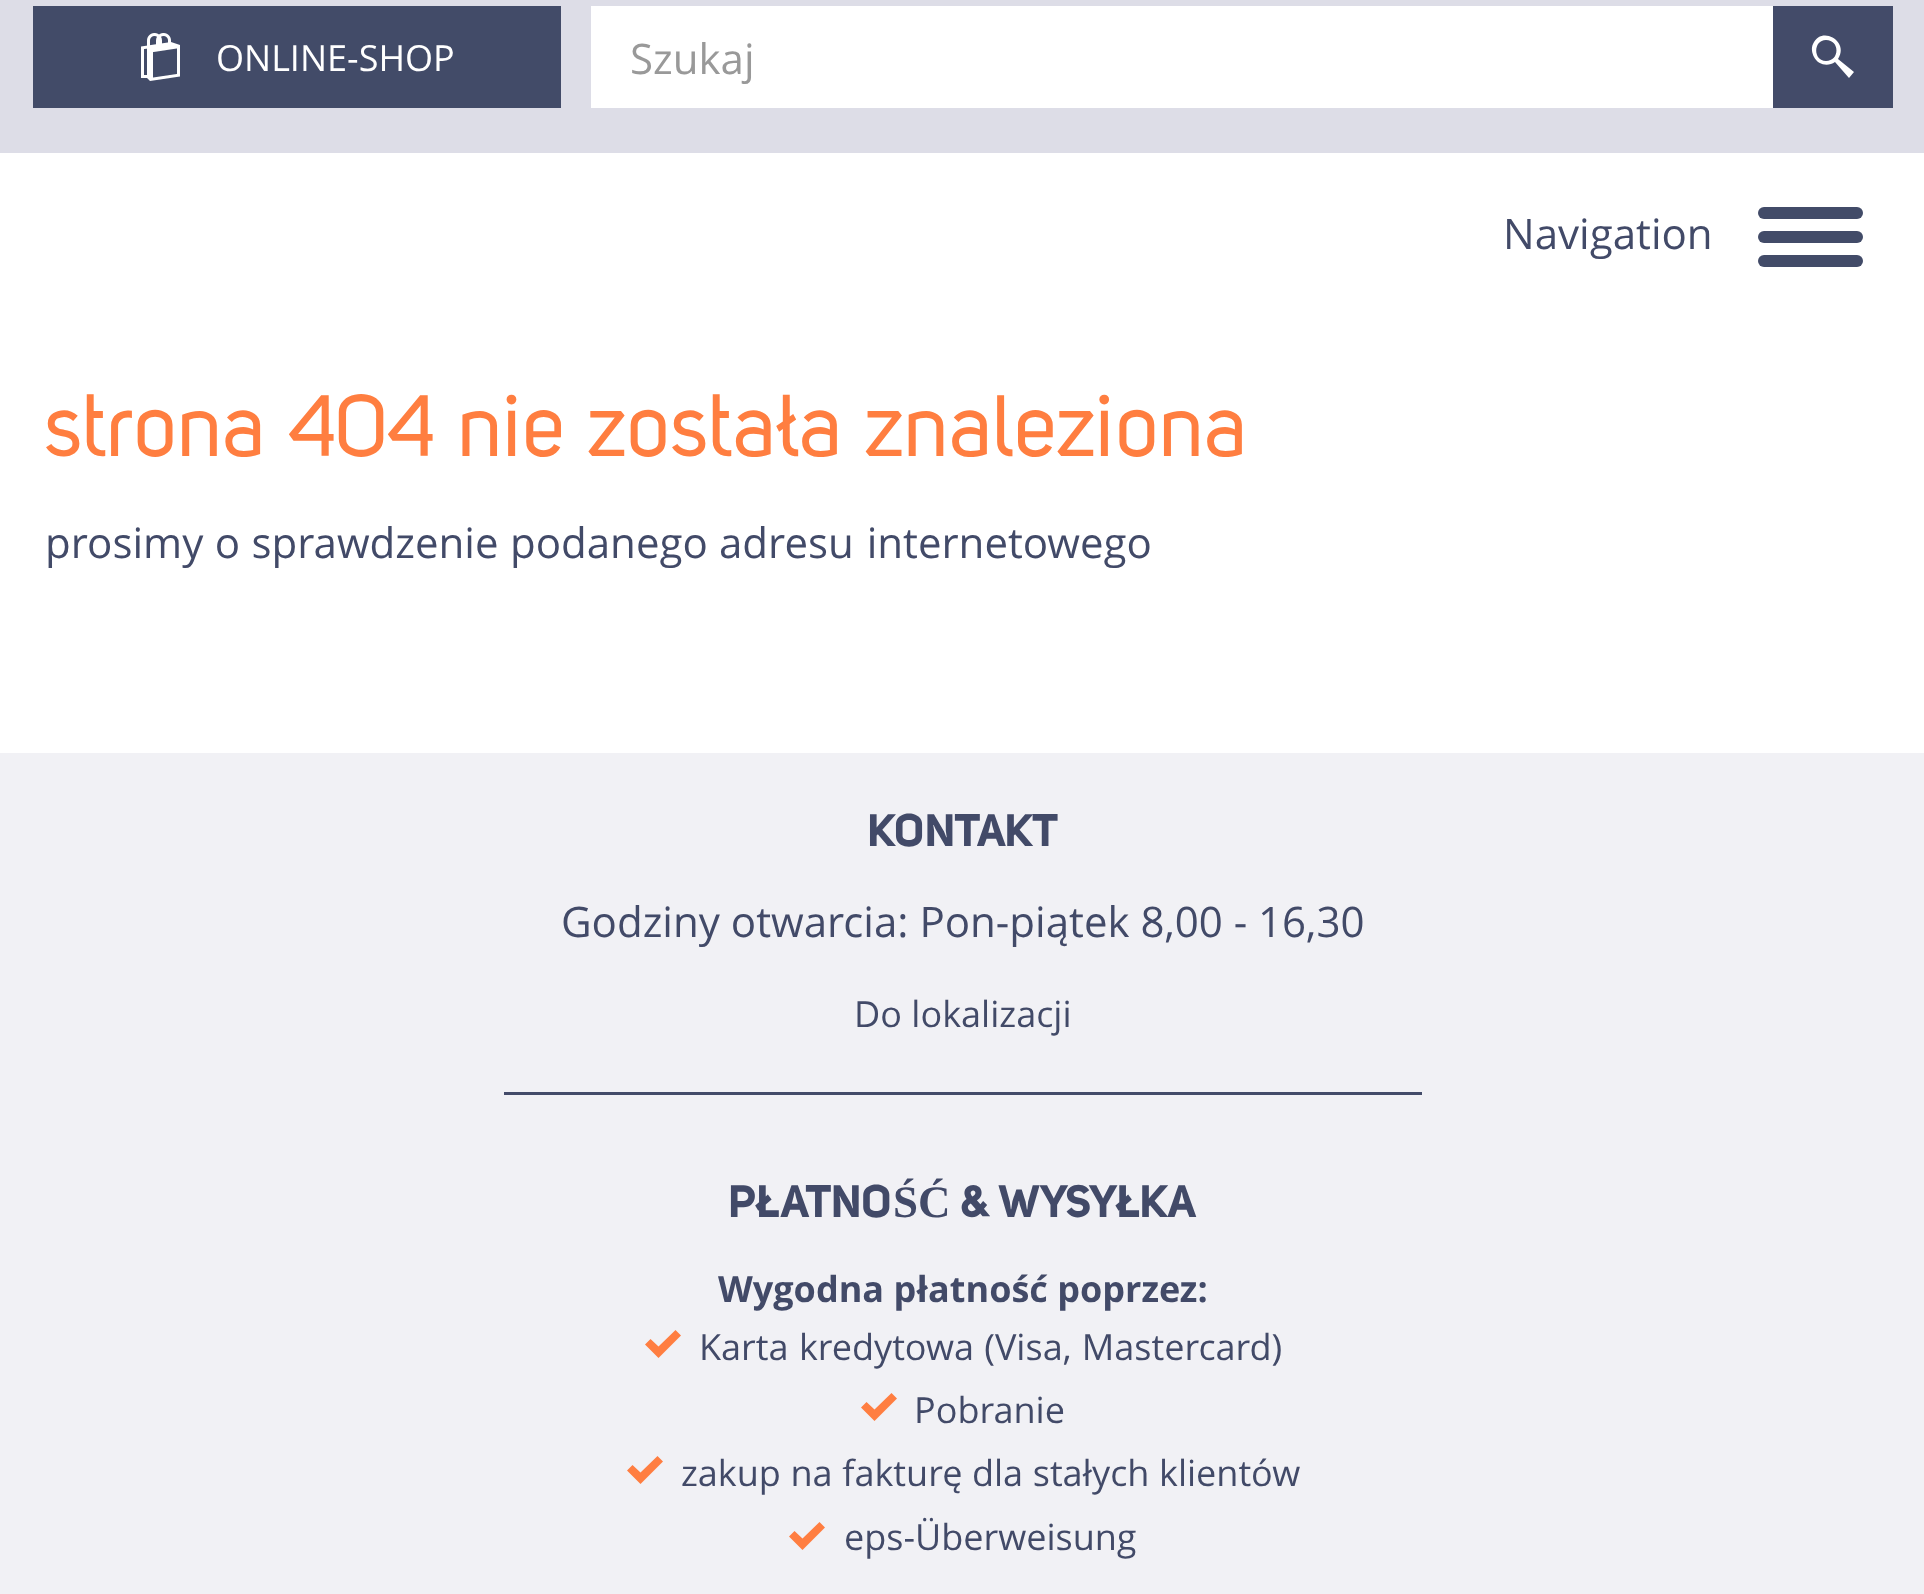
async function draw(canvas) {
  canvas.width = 1924
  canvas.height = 1594
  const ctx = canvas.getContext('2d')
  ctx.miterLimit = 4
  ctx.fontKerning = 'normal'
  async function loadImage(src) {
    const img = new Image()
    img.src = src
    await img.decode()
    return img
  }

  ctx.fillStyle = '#fff'
  ctx.fillRect(0, 0, 1924, 1594)
  ctx.fillStyle = '#dddde7'
  ctx.fillRect(0, 0, 1924, 153)
  ctx.fillStyle = '#424b68'
  ctx.fillRect(33, 6, 528, 102)
  ctx.drawImage(await loadImage('image0.png'), 141, 33, 39, 48)
  ctx.font = '36px Open Sans'
  ctx.fillStyle = '#fff'
  ctx.fillText('ONLINE-SHOP', 216, 71)
  ctx.fillRect(591, 6, 1182, 102)
  ctx.font = '42px Open Sans'
  ctx.fillStyle = '#999'
  ctx.fillText('Szukaj', 630, 74)
  ctx.fillStyle = '#434b69'
  ctx.fillRect(1773, 6, 120, 102)
  ctx.fillStyle = '#fff'
  ctx.beginPath()
  ctx.moveTo(1838, 59)
  ctx.bezierCurveTo(1850, 41, 1821, 25, 1813, 44)
  ctx.bezierCurveTo(1811, 48, 1812, 53, 1814, 57)
  ctx.bezierCurveTo(1818, 65, 1828, 67, 1835, 62)
  ctx.lineTo(1849, 78)
  ctx.lineTo(1854, 72)
  ctx.closePath()
  ctx.moveTo(1826, 61)
  ctx.bezierCurveTo(1813, 61, 1813, 40, 1826, 40)
  ctx.bezierCurveTo(1840, 40, 1840, 61, 1826, 61)
  ctx.closePath()
  ctx.fill()
  ctx.fillStyle = '#424a68'
  ctx.fillText('Navigation', 1503, 249)
  ctx.fillStyle = '#424b68'
  ctx.beginPath()
  ctx.roundRect(1758, 207, 105, 12, 6)
  ctx.fill()
  ctx.beginPath()
  ctx.roundRect(1758, 231, 105, 12, 6)
  ctx.fill()
  ctx.beginPath()
  ctx.roundRect(1758, 255, 105, 12, 6)
  ctx.fill()
  ctx.font = '87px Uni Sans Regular'
  ctx.fillStyle = '#ff7e40'
  ctx.fillText('strona 404 nie została znaleziona', 45, 456)
  ctx.wordSpacing = '0.5px'
  ctx.font = '42px Open Sans'
  ctx.fillStyle = '#424a68'
  ctx.fillText('prosimy o sprawdzenie podanego', 45, 558)
  ctx.wordSpacing = '2px'
  ctx.fillText('adresu internetowego', 719, 558)
  ctx.fillStyle = '#f1f1f5'
  ctx.fillRect(0, 753, 1924, 841)
  ctx.wordSpacing = '0px'
  ctx.font = 'bold 45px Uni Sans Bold'
  ctx.fillStyle = '#424a68'
  ctx.fillText('KONTAKT', 868, 846)
  ctx.font = '42px Open Sans'
  ctx.fillText('Godziny otwarcia: Pon-piątek 8,00 - 16,30', 561, 937)
  ctx.font = '36px Open Sans'
  ctx.fillText('Do lokalizacji', 854, 1027)
  ctx.fillStyle = '#434b69'
  ctx.fillRect(504, 1092, 918, 3)
  ctx.font = 'bold 45px Uni Sans Bold'
  ctx.fillStyle = '#424a68'
  ctx.fillText('PŁATNO', 729, 1217)
  ctx.font = 'bold 45px Liberation Serif'
  ctx.fillText('ŚĆ', 893, 1217)
  ctx.font = 'bold 45px Uni Sans Bold'
  ctx.fillText('& WYSYŁKA', 961, 1217)
  ctx.font = 'bold 36px Open Sans'
  ctx.fillText('Wygodna płatność poprzez:', 718, 1302)
  ctx.fillStyle = '#ff7e41'
  ctx.beginPath()
  ctx.moveTo(675.5, 1330)
  ctx.lineTo(658.5, 1346.5)
  ctx.lineTo(650.5, 1339)
  ctx.lineTo(645, 1344.5)
  ctx.lineTo(658.5, 1358)
  ctx.lineTo(681, 1335.5)
  ctx.closePath()
  ctx.fill()
  ctx.wordSpacing = '1px'
  ctx.font = '36px Open Sans'
  ctx.fillStyle = '#424a68'
  ctx.fillText('Karta kredytowa (Visa, Mastercard)', 699, 1360)
  ctx.fillStyle = '#ff7e41'
  ctx.beginPath()
  ctx.moveTo(891.5, 1393)
  ctx.lineTo(874.5, 1409.5)
  ctx.lineTo(866.5, 1402)
  ctx.lineTo(861, 1407.5)
  ctx.lineTo(874.5, 1421)
  ctx.lineTo(897, 1398.5)
  ctx.closePath()
  ctx.fill()
  ctx.wordSpacing = '0px'
  ctx.fillStyle = '#424a68'
  ctx.fillText('Pobranie', 914, 1423)
  ctx.fillStyle = '#ff7e41'
  ctx.beginPath()
  ctx.moveTo(657.5, 1456)
  ctx.lineTo(640.5, 1472.5)
  ctx.lineTo(632.5, 1465)
  ctx.lineTo(627, 1470.5)
  ctx.lineTo(640.5, 1484)
  ctx.lineTo(663, 1461.5)
  ctx.closePath()
  ctx.fill()
  ctx.wordSpacing = '0.25px'
  ctx.fillStyle = '#424a68'
  ctx.fillText('zakup na fakturę dla stałych klientów', 681, 1486)
  ctx.fillStyle = '#ff7e41'
  ctx.beginPath()
  ctx.moveTo(819.5, 1522)
  ctx.lineTo(802.5, 1538.5)
  ctx.lineTo(794.5, 1531)
  ctx.lineTo(789, 1536.5)
  ctx.lineTo(802.5, 1550)
  ctx.lineTo(825, 1527.5)
  ctx.closePath()
  ctx.fill()
  ctx.wordSpacing = '0px'
  ctx.fillStyle = '#424a68'
  ctx.fillText('eps-Überweisung', 844, 1550)
}

draw(document.querySelector('canvas'))
